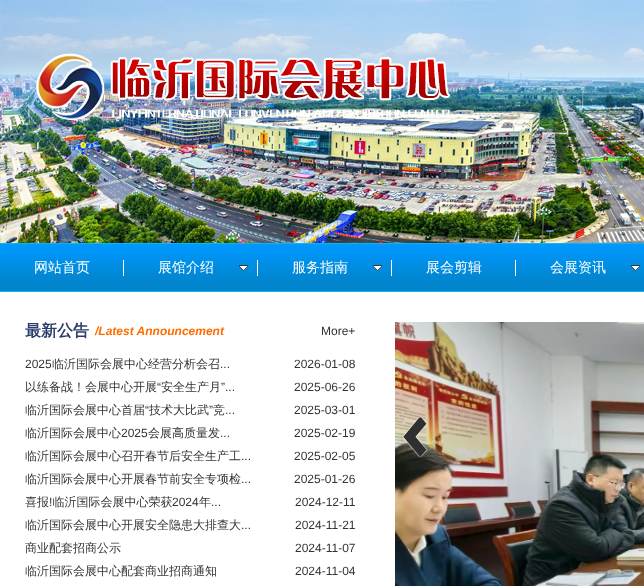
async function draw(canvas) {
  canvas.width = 644
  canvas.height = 586
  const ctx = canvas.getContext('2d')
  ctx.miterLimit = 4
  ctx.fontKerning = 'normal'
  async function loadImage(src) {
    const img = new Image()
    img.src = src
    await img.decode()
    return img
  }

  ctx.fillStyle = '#fff'
  ctx.fillRect(0, 0, 644, 586)
  ctx.drawImage(await loadImage('image0.png'), 0, 0, 644, 243)
  ctx.drawImage(await loadImage('image1.png'), 0, 243, 644, 49)
  ctx.fillStyle = '#fffffe'
  ctx.fillRect(123, 260, 1, 16)
  ctx.font = '500 14px WenQuanYi Zen Hei'
  ctx.fillStyle = '#fff'
  ctx.fillText('网站首页', 34, 272)
  ctx.fillStyle = '#fffffe'
  ctx.fillRect(257, 260, 1, 16)
  ctx.fillStyle = '#fff'
  ctx.fillText('展馆介绍', 158, 272)
  ctx.drawImage(await loadImage('image2.png'), 239, 265, 9, 6)
  ctx.fillStyle = '#fffffe'
  ctx.fillRect(391, 260, 1, 16)
  ctx.fillStyle = '#fff'
  ctx.fillText('服务指南', 292, 272)
  ctx.drawImage(await loadImage('image2.png'), 373, 265, 9, 6)
  ctx.fillStyle = '#fffffe'
  ctx.fillRect(515, 260, 1, 16)
  ctx.fillStyle = '#fff'
  ctx.fillText('展会剪辑', 426, 272)
  ctx.fillText('会展资讯', 550, 272)
  ctx.drawImage(await loadImage('image2.png'), 631, 265, 9, 6)
  ctx.font = 'bold 16px WenQuanYi Zen Hei'
  ctx.fillStyle = '#2a3c6c'
  ctx.fillText('最新公告', 25, 336)
  ctx.font = 'italic bold 12px Liberation Sans'
  ctx.fillStyle = '#ff6c00'
  ctx.fillText('/Latest Announcement', 95, 335)
  ctx.font = '12px Liberation Sans'
  ctx.fillStyle = '#333'
  ctx.fillText('More+', 321, 335)
  ctx.fillText('2025', 25, 368)
  ctx.font = '500 12px WenQuanYi Zen Hei'
  ctx.fillText('临沂国际会展中心经营分析会召', 52, 368)
  ctx.font = '12px Liberation Sans'
  ctx.fillText('...', 220, 368)
  ctx.fillText('2026-01-08', 294, 368)
  ctx.font = '500 12px WenQuanYi Zen Hei'
  ctx.fillText('以练备战！会展中心开展', 25, 391)
  ctx.font = '12px Liberation Sans'
  ctx.fillText('“', 157, 391)
  ctx.font = '500 12px WenQuanYi Zen Hei'
  ctx.fillText('安全生产月', 161, 391)
  ctx.font = '12px Liberation Sans'
  ctx.fillText('”...', 221, 391)
  ctx.fillText('2025-06-26', 294, 391)
  ctx.font = '500 12px WenQuanYi Zen Hei'
  ctx.fillText('临沂国际会展中心首届', 25, 414)
  ctx.font = '12px Liberation Sans'
  ctx.fillText('“', 145, 414)
  ctx.font = '500 12px WenQuanYi Zen Hei'
  ctx.fillText('技术大比武', 149, 414)
  ctx.font = '12px Liberation Sans'
  ctx.fillText('”', 209, 414)
  ctx.font = '500 12px WenQuanYi Zen Hei'
  ctx.fillText('竞', 213, 414)
  ctx.font = '12px Liberation Sans'
  ctx.fillText('...', 225, 414)
  ctx.fillText('2025-03-01', 294, 414)
  ctx.font = '500 12px WenQuanYi Zen Hei'
  ctx.fillText('临沂国际会展中心', 25, 437)
  ctx.font = '12px Liberation Sans'
  ctx.fillText('2025', 121, 437)
  ctx.font = '500 12px WenQuanYi Zen Hei'
  ctx.fillText('会展高质量发', 148, 437)
  ctx.font = '12px Liberation Sans'
  ctx.fillText('...', 220, 437)
  ctx.fillText('2025-02-19', 294, 437)
  ctx.font = '500 12px WenQuanYi Zen Hei'
  ctx.fillText('临沂国际会展中心召开春节后安全生产工', 25, 460)
  ctx.font = '12px Liberation Sans'
  ctx.fillText('...', 241, 460)
  ctx.fillText('2025-02-05', 294, 460)
  ctx.font = '500 12px WenQuanYi Zen Hei'
  ctx.fillText('临沂国际会展中心开展春节前安全专项检', 25, 483)
  ctx.font = '12px Liberation Sans'
  ctx.fillText('...', 241, 483)
  ctx.fillText('2025-01-26', 294, 483)
  ctx.font = '500 12px WenQuanYi Zen Hei'
  ctx.fillText('喜报 临沂国际会展中心荣获', 25, 506)
  ctx.fillText('年', 199, 506)
  ctx.font = '12px Liberation Sans'
  ctx.fillText('!', 49, 506)
  ctx.fillText('2024', 172, 506)
  ctx.fillText('...', 211, 506)
  ctx.fillText('2024-12-11', 295, 506)
  ctx.font = '500 12px WenQuanYi Zen Hei'
  ctx.fillText('临沂国际会展中心开展安全隐患大排查大', 25, 529)
  ctx.font = '12px Liberation Sans'
  ctx.fillText('...', 241, 529)
  ctx.fillText('2024-11-21', 295, 529)
  ctx.font = '500 12px WenQuanYi Zen Hei'
  ctx.fillText('商业配套招商公示', 25, 552)
  ctx.font = '12px Liberation Sans'
  ctx.fillText('2024-11-07', 295, 552)
  ctx.font = '500 12px WenQuanYi Zen Hei'
  ctx.fillText('临沂国际会展中心配套商业招商通知', 25, 575)
  ctx.font = '12px Liberation Sans'
  ctx.fillText('2024-11-04', 295, 575)
  ctx.drawImage(await loadImage('image3.png'), 395, 322, 249, 264)
  ctx.drawImage(await loadImage('image4.png'), 402, 416, 26, 41)
}

draw(document.querySelector('canvas'))
